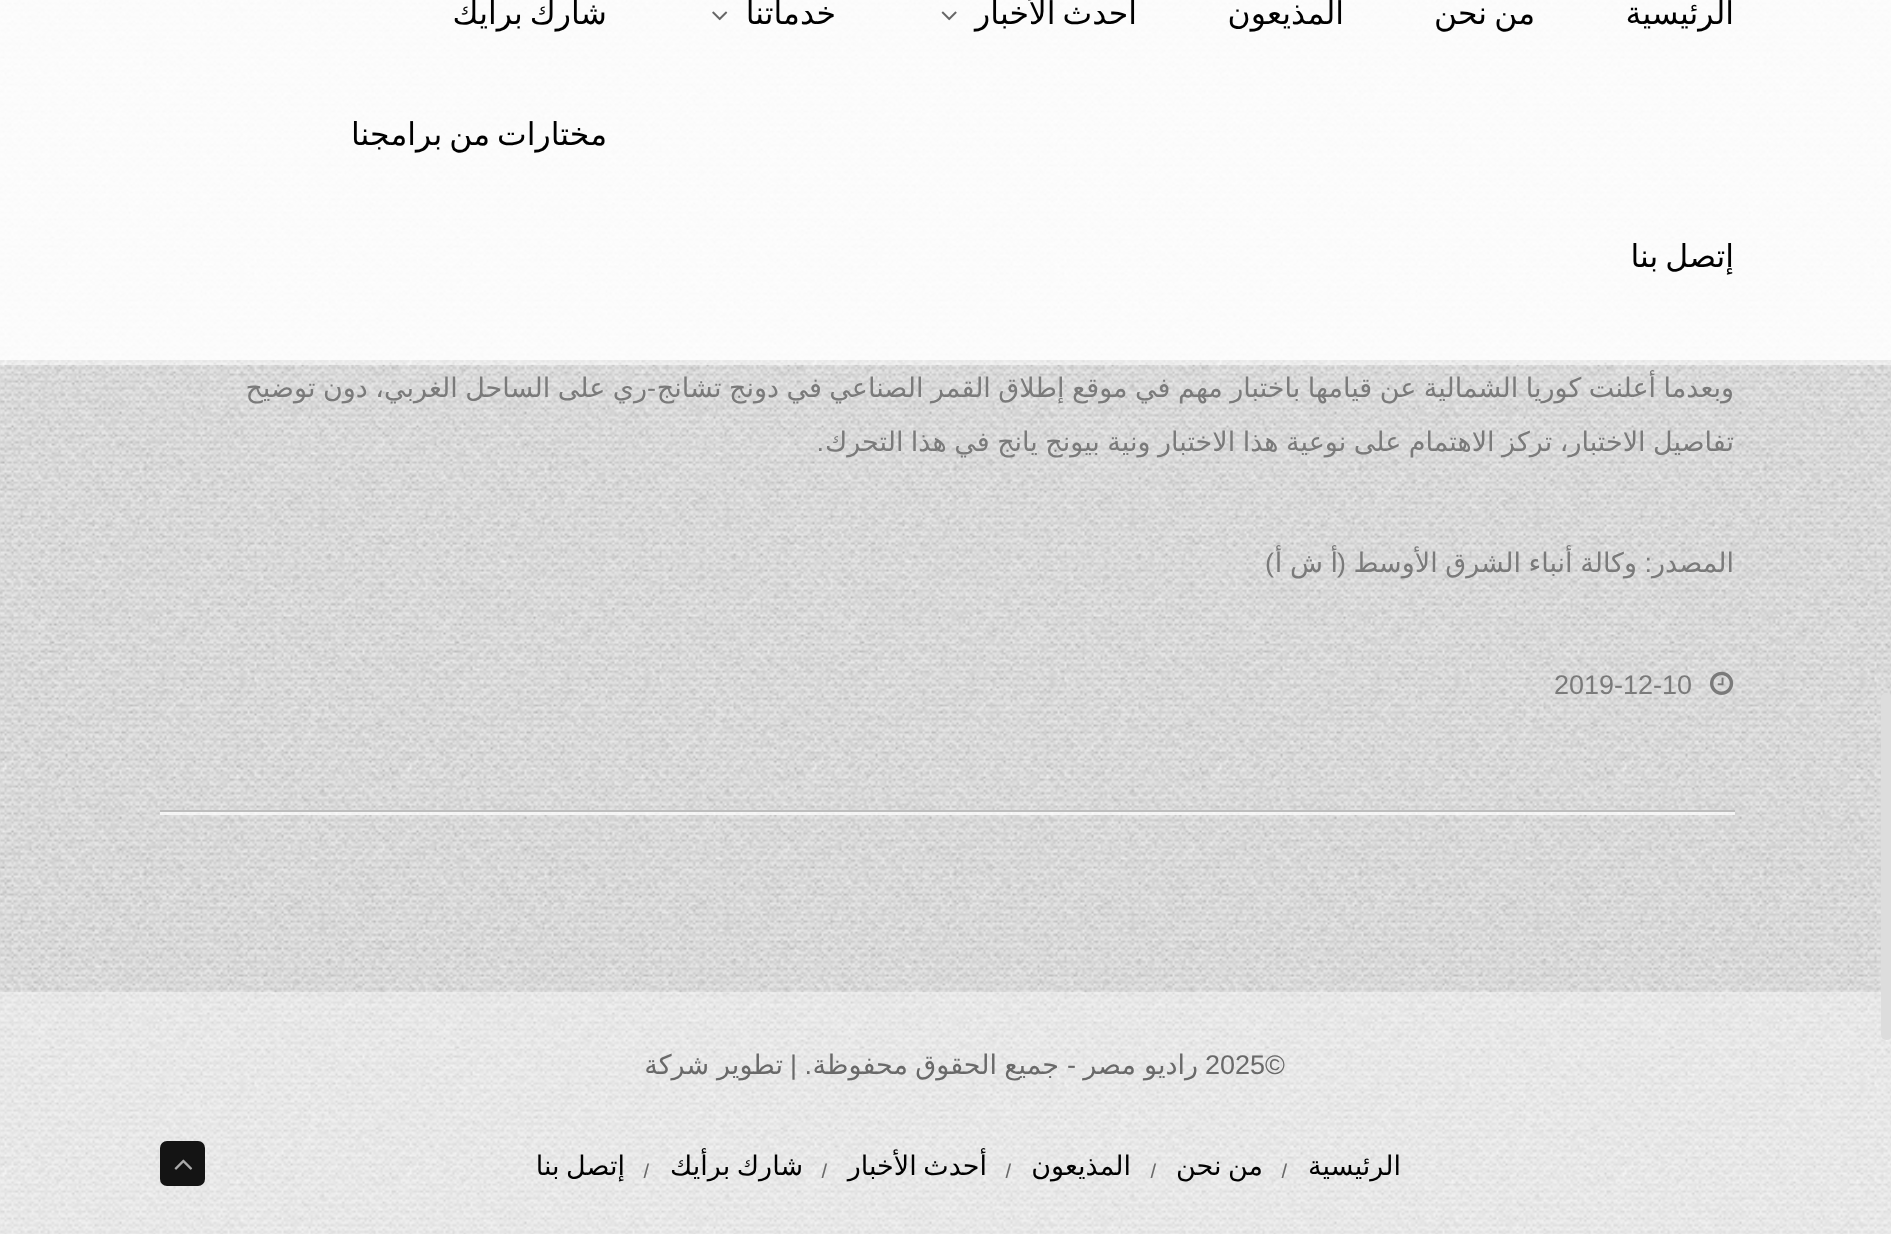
async function draw(canvas) {
  canvas.width = 1891
  canvas.height = 1234
  const ctx = canvas.getContext('2d')
  ctx.miterLimit = 4
  ctx.fontKerning = 'normal'
  async function loadImage(src) {
    const img = new Image()
    img.src = src
    await img.decode()
    return img
  }

  ctx.fillStyle = '#fff'
  ctx.fillRect(0, 0, 1891, 1234)
  ctx.drawImage(await loadImage('image0.png'), 0, 0, 1891, 1234)
  ctx.fillStyle = '#ffffff66'
  ctx.fillRect(0, 992, 1891, 242)
  ctx.fillStyle = '#ddd'
  ctx.beginPath()
  ctx.roundRect(1881, 693, 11, 347, 5)
  ctx.fill()
  ctx.fillStyle = '#ffffff80'
  ctx.fillRect(0, 360, 1891, 5)
  ctx.fillStyle = '#ffffffe6'
  ctx.fillRect(0, 0, 1891, 360)
  ctx.direction = 'rtl'
  ctx.font = '31.5px DejaVu Sans'
  ctx.fillStyle = '#000'
  ctx.fillText('الرئيسية', 1734, 24)
  ctx.wordSpacing = '-3px'
  ctx.fillText('من نحن', 1535, 24)
  ctx.wordSpacing = '0px'
  ctx.fillText('المذيعون', 1344, 24)
  ctx.wordSpacing = '-3px'
  ctx.fillText('أحدث الأخبار', 1137, 24)
  ctx.drawImage(await loadImage('image1.png'), 941, 11, 16, 10)
  ctx.wordSpacing = '0px'
  ctx.fillText('خدماتنا', 836, 24)
  ctx.drawImage(await loadImage('image2.png'), 712, 11, 16, 10)
  ctx.wordSpacing = '-3px'
  ctx.fillText('شارك برأيك', 607, 24)
  ctx.fillText('مختارات من برامجنا', 607, 145)
  ctx.fillText('إتصل بنا', 1734, 267)
  ctx.fillStyle = '#ffffffbf'
  ctx.beginPath()
  ctx.moveTo(160, 812)
  ctx.lineTo(160, 815)
  ctx.lineTo(1735, 815)
  ctx.lineTo(1735, -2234)
  ctx.lineTo(1735, 812)
  ctx.closePath()
  ctx.fill()
  ctx.fillStyle = '#bdbdbd'
  ctx.fillRect(160, 810, 1575, 2)
  ctx.wordSpacing = '-1.1px'
  ctx.font = '27px DejaVu Sans'
  ctx.fillStyle = '#7a7a7a'
  ctx.fillText('وبعدما أعلنت كوريا الشمالية عن قيامها باختبار مهم في موقع إطلاق القمر الصناعي في دونج تشانج', 1734, 397)
  ctx.fillText('ري على الساحل الغربي، دون توضيح', 647, 397)
  ctx.wordSpacing = '0px'
  ctx.font = '27px Liberation Sans'
  ctx.fillText('-', 656, 397)
  ctx.wordSpacing = '-1.1px'
  ctx.font = '27px DejaVu Sans'
  ctx.fillText('تفاصيل الاختبار، تركز الاهتمام على نوعية هذا الاختبار ونية بيونج يانج في هذا التحرك', 1734, 451)
  ctx.wordSpacing = '0px'
  ctx.font = '27px Liberation Sans'
  ctx.fillText('.', 824, 451)
  ctx.font = '27px DejaVu Sans'
  ctx.fillText('المصدر', 1734, 572)
  ctx.font = '27px Liberation Sans'
  ctx.fillText(':', 1652, 572)
  ctx.wordSpacing = '-1px'
  ctx.font = '27px DejaVu Sans'
  ctx.fillText('وكالة أنباء الشرق الأوسط', 1637, 572)
  ctx.wordSpacing = '0px'
  ctx.font = '27px Liberation Sans'
  ctx.fillText('(', 1346, 572)
  ctx.wordSpacing = '-1px'
  ctx.font = '27px DejaVu Sans'
  ctx.fillText('أ ش أ', 1338, 572)
  ctx.wordSpacing = '0px'
  ctx.font = '27px Liberation Sans'
  ctx.fillText(')', 1274, 572)
  ctx.drawImage(await loadImage('image3.png'), 1710, 671, 24, 24)
  ctx.direction = 'ltr'
  ctx.fillText('2019-12-10', 1554, 694)
  ctx.fillStyle = '#696969'
  ctx.fillText('2025©', 1205, 1074)
  ctx.direction = 'rtl'
  ctx.font = '27px DejaVu Sans'
  ctx.fillText('راديو', 1198, 1074)
  ctx.fillText('مصر', 1136, 1074)
  ctx.font = '27px Liberation Sans'
  ctx.fillText('-', 1076, 1074)
  ctx.font = '27px DejaVu Sans'
  ctx.fillText('جميع', 1059, 1074)
  ctx.fillText('الحقوق', 997, 1074)
  ctx.fillText('محفوظة', 908, 1074)
  ctx.font = '27px Liberation Sans'
  ctx.fillText('. |', 812, 1074)
  ctx.font = '27px DejaVu Sans'
  ctx.fillText('تطوير', 783, 1074)
  ctx.fillText('شركة', 709, 1074)
  ctx.fillStyle = '#000'
  ctx.fillText('الرئيسية', 1401, 1175)
  ctx.direction = 'ltr'
  ctx.font = '18px Oswald'
  ctx.fillStyle = '#696969'
  ctx.fillText('/', 1281, 1178)
  ctx.wordSpacing = '-2px'
  ctx.direction = 'rtl'
  ctx.font = '27px DejaVu Sans'
  ctx.fillStyle = '#000'
  ctx.fillText('من نحن', 1263, 1175)
  ctx.wordSpacing = '0px'
  ctx.direction = 'ltr'
  ctx.font = '18px Oswald'
  ctx.fillStyle = '#696969'
  ctx.fillText('/', 1150, 1178)
  ctx.direction = 'rtl'
  ctx.font = '27px DejaVu Sans'
  ctx.fillStyle = '#000'
  ctx.fillText('المذيعون', 1131, 1175)
  ctx.direction = 'ltr'
  ctx.font = '18px Oswald'
  ctx.fillStyle = '#696969'
  ctx.fillText('/', 1005, 1178)
  ctx.wordSpacing = '-2px'
  ctx.direction = 'rtl'
  ctx.font = '27px DejaVu Sans'
  ctx.fillStyle = '#000'
  ctx.fillText('أحدث الأخبار', 987, 1175)
  ctx.wordSpacing = '0px'
  ctx.direction = 'ltr'
  ctx.font = '18px Oswald'
  ctx.fillStyle = '#696969'
  ctx.fillText('/', 821, 1178)
  ctx.wordSpacing = '-2px'
  ctx.direction = 'rtl'
  ctx.font = '27px DejaVu Sans'
  ctx.fillStyle = '#000'
  ctx.fillText('شارك برأيك', 803, 1175)
  ctx.wordSpacing = '0px'
  ctx.direction = 'ltr'
  ctx.font = '18px Oswald'
  ctx.fillStyle = '#696969'
  ctx.fillText('/', 643, 1178)
  ctx.wordSpacing = '-2px'
  ctx.direction = 'rtl'
  ctx.font = '27px DejaVu Sans'
  ctx.fillStyle = '#000'
  ctx.fillText('إتصل بنا', 625, 1175)
  ctx.fillStyle = '#141414'
  ctx.beginPath()
  ctx.roundRect(160, 1141, 45, 45, 7)
  ctx.fill()
  ctx.drawImage(await loadImage('image4.png'), 174, 1159, 19, 11)
}

draw(document.querySelector('canvas'))
